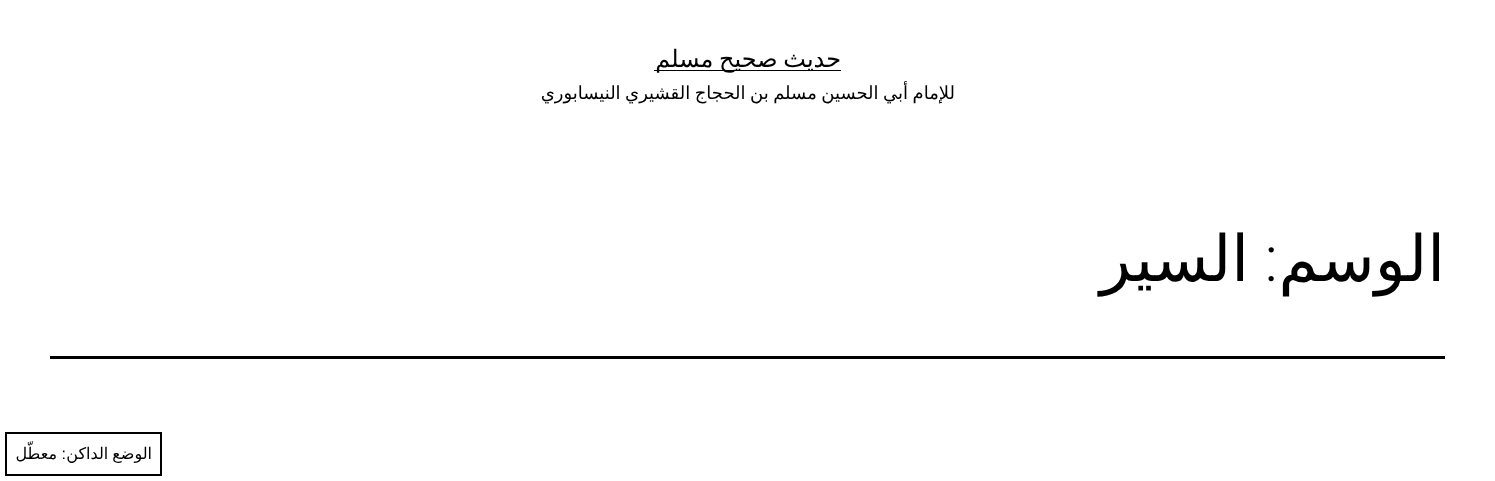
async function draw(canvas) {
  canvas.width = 1495
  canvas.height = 481
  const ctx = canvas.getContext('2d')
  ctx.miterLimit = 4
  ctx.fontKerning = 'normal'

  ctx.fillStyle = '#fff'
  ctx.fillRect(0, 0, 1495, 481)
  ctx.fillStyle = '#000'
  ctx.fillRect(654, 70, 187, 1)
  ctx.wordSpacing = '-2px'
  ctx.direction = 'rtl'
  ctx.font = '24px DejaVu Sans'
  ctx.fillText('حديث صحيح مسلم', 841, 67)
  ctx.wordSpacing = '-1.25px'
  ctx.font = '18px DejaVu Sans'
  ctx.fillText('للإمام أبي الحسين مسلم بن الحجاج القشيري النيسابوري', 955, 99)
  ctx.fillRect(50, 356, 1395, 3)
  ctx.wordSpacing = '0px'
  ctx.font = '64px DejaVu Sans'
  ctx.fillText('الوسم', 1445, 281)
  ctx.font = '300 64px Roboto'
  ctx.fillText(':', 1278, 281)
  ctx.font = '64px DejaVu Sans'
  ctx.fillText('السير', 1249, 281)
  ctx.strokeStyle = '#000'
  ctx.lineWidth = 2
  ctx.strokeRect(6, 433, 155, 42)
  ctx.wordSpacing = '-1px'
  ctx.font = '16px DejaVu Sans'
  ctx.fillText('الوضع الداكن', 152, 459)
  ctx.wordSpacing = '0px'
  ctx.font = '16px Liberation Sans'
  ctx.fillText(':', 66, 459)
  ctx.font = '16px DejaVu Sans'
  ctx.fillText('معطّل', 57, 459)
}

draw(document.querySelector('canvas'))
